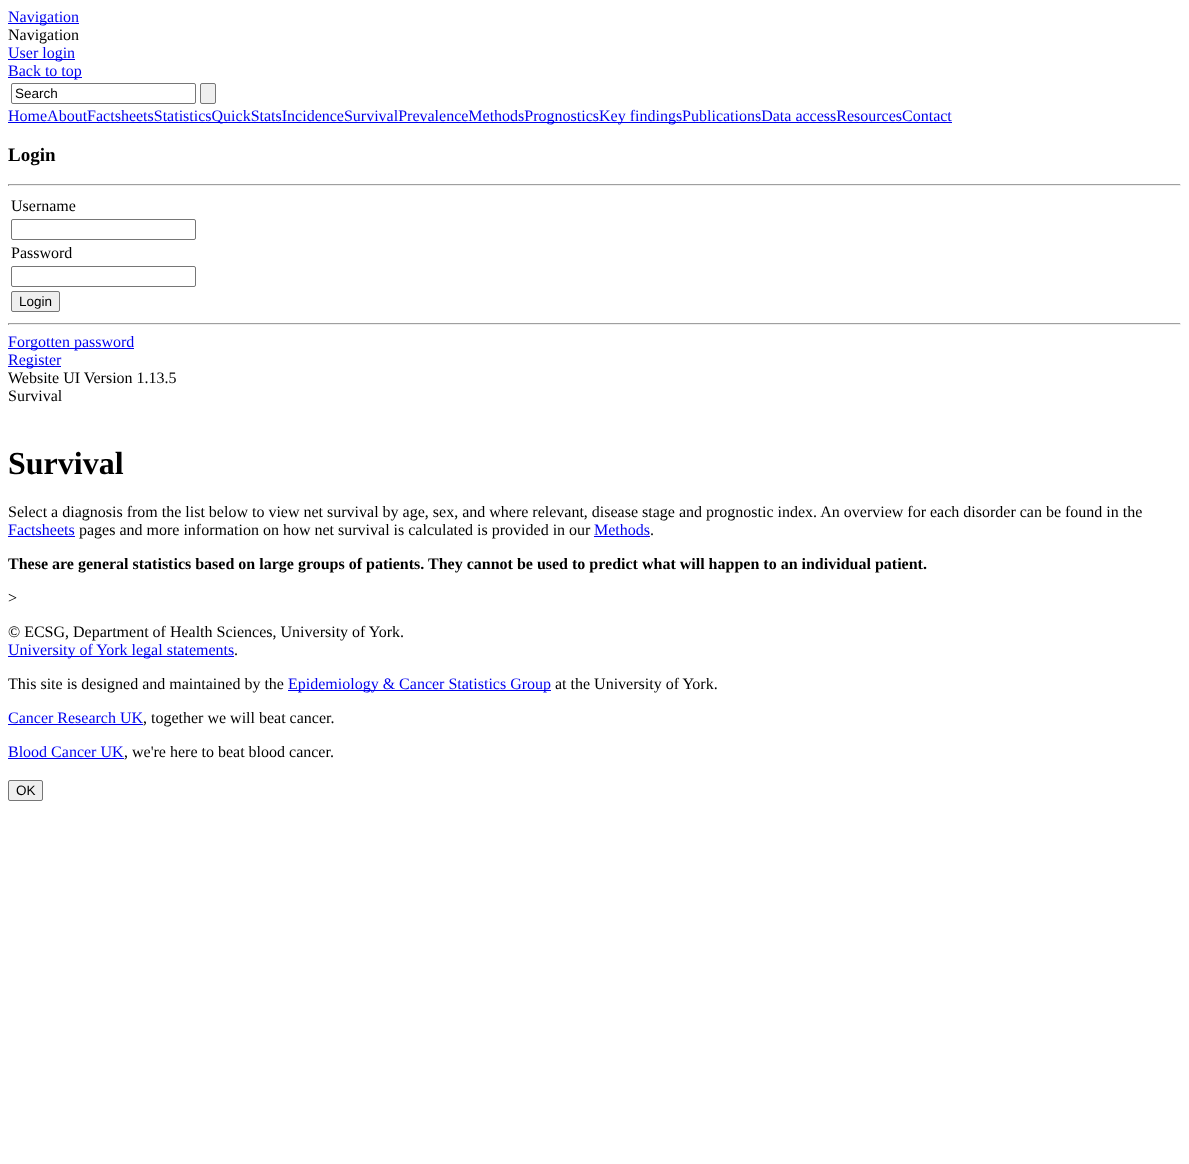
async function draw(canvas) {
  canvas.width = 1189
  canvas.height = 1164
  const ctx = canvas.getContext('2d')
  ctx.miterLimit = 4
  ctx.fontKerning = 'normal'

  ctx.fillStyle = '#fff'
  ctx.fillRect(0, 0, 1189, 1164)
  ctx.fillStyle = '#00e'
  ctx.fillRect(8, 23, 71, 1)
  ctx.font = '16px Liberation Serif'
  ctx.fillText('Navigation', 8, 22)
  ctx.fillStyle = '#000'
  ctx.fillText('Navigation', 8, 40)
  ctx.fillStyle = '#00e'
  ctx.fillRect(8, 59, 67, 1)
  ctx.fillText('User login', 8, 58)
  ctx.fillRect(8, 77, 74, 1)
  ctx.fillText('Back to top', 8, 76)
  ctx.beginPath()
  ctx.roundRect(11.5, 83.5, 184, 20, 1.5)
  ctx.strokeStyle = '#767676'
  ctx.stroke()
  ctx.font = '13.5px Liberation Sans'
  ctx.fillStyle = '#000'
  ctx.fillText('Search', 15, 98)
  ctx.fillStyle = '#efefef'
  ctx.beginPath()
  ctx.roundRect(200.5, 83.5, 15, 20, 1.5)
  ctx.fill()
  ctx.stroke()
  ctx.fillStyle = '#00e'
  ctx.fillRect(8, 122, 944, 1)
  ctx.font = '16px Liberation Serif'
  ctx.fillText('HomeAboutFactsheetsStatisticsQuickStatsIncidenceSurvivalPrevalenceMethodsPrognosticsKey findingsPublicationsData accessResourcesContact', 8, 121)
  ctx.font = 'bold 19px Liberation Serif'
  ctx.fillStyle = '#000'
  ctx.fillText('Login', 8, 161)
  ctx.fillStyle = '#9f9f9f'
  ctx.fillRect(8, 184, 1173, 1)
  ctx.fillStyle = '#eee'
  ctx.fillRect(1180, 184, 1, 2)
  ctx.fillRect(8, 185, 1173, 1)
  ctx.fillStyle = '#9f9f9f'
  ctx.fillRect(8, 184, 1, 2)
  ctx.font = '16px Liberation Serif'
  ctx.fillStyle = '#000'
  ctx.fillText('Username', 11, 211)
  ctx.beginPath()
  ctx.roundRect(11.5, 219.5, 184, 20, 1.5)
  ctx.stroke()
  ctx.fillText('Password', 11, 258)
  ctx.beginPath()
  ctx.roundRect(11.5, 266.5, 184, 20, 1.5)
  ctx.stroke()
  ctx.fillStyle = '#efefef'
  ctx.beginPath()
  ctx.roundRect(11.5, 291.5, 48, 20, 1.5)
  ctx.fill()
  ctx.stroke()
  ctx.font = '13.5px Liberation Sans'
  ctx.fillStyle = '#000'
  ctx.fillText('Login', 19, 306)
  ctx.fillStyle = '#9f9f9f'
  ctx.fillRect(8, 323, 1173, 1)
  ctx.fillStyle = '#eee'
  ctx.fillRect(1180, 323, 1, 2)
  ctx.fillRect(8, 324, 1173, 1)
  ctx.fillStyle = '#9f9f9f'
  ctx.fillRect(8, 323, 1, 2)
  ctx.fillStyle = '#00e'
  ctx.fillRect(8, 348, 126, 1)
  ctx.font = '16px Liberation Serif'
  ctx.fillText('Forgotten password', 8, 347)
  ctx.fillRect(8, 366, 53, 1)
  ctx.fillText('Register', 8, 365)
  ctx.fillStyle = '#000'
  ctx.fillText('Website UI Version 1.13.5', 8, 383)
  ctx.fillText('Survival', 8, 401)
  ctx.font = 'bold 32px Liberation Serif'
  ctx.fillText('Survival', 8, 474)
  ctx.font = '16px Liberation Serif'
  ctx.fillText('Select a diagnosis from the list below to view net survival by age, sex, and where relevant, disease stage and prognostic index. An overview for each disorder can be found in the', 8, 517)
  ctx.fillStyle = '#00e'
  ctx.fillText('Factsheets', 8, 535)
  ctx.fillRect(8, 536, 67, 1)
  ctx.fillStyle = '#000'
  ctx.fillText('pages and more information on how net survival is calculated is provided in our', 79, 535)
  ctx.fillStyle = '#00e'
  ctx.fillText('Methods', 594, 535)
  ctx.fillRect(594, 536, 56, 1)
  ctx.fillStyle = '#000'
  ctx.fillText('.', 650, 535)
  ctx.font = 'bold 16px Liberation Serif'
  ctx.fillText('These are general statistics based on large groups of patients. They cannot be used to predict what will happen to an individual patient.', 8, 569)
  ctx.font = '16px Liberation Serif'
  ctx.fillText('>', 8, 603)
  ctx.fillText('© ECSG, Department of Health Sciences, University of York.', 8, 637)
  ctx.fillStyle = '#00e'
  ctx.fillRect(8, 656, 226, 1)
  ctx.fillText('University of York legal statements', 8, 655)
  ctx.fillStyle = '#000'
  ctx.fillText('.', 234, 655)
  ctx.fillText('This site is designed and maintained by the', 8, 689)
  ctx.fillStyle = '#00e'
  ctx.fillRect(288, 690, 263, 1)
  ctx.fillText('Epidemiology & Cancer Statistics Group', 288, 689)
  ctx.fillStyle = '#000'
  ctx.fillText('at the University of York.', 555, 689)
  ctx.fillStyle = '#00e'
  ctx.fillText('Cancer Research UK', 8, 723)
  ctx.fillRect(8, 724, 135, 1)
  ctx.fillStyle = '#000'
  ctx.fillText(', together we will beat cancer.', 143, 723)
  ctx.fillStyle = '#00e'
  ctx.fillText('Blood Cancer UK', 8, 757)
  ctx.fillRect(8, 758, 116, 1)
  ctx.fillStyle = '#000'
  ctx.fillText(', we\'re here to beat blood cancer.', 124, 757)
  ctx.fillStyle = '#efefef'
  ctx.beginPath()
  ctx.roundRect(8.5, 780.5, 34, 20, 1.5)
  ctx.fill()
  ctx.stroke()
  ctx.font = '13.5px Liberation Sans'
  ctx.fillStyle = '#000'
  ctx.fillText('OK', 16, 795)
}

draw(document.querySelector('canvas'))
